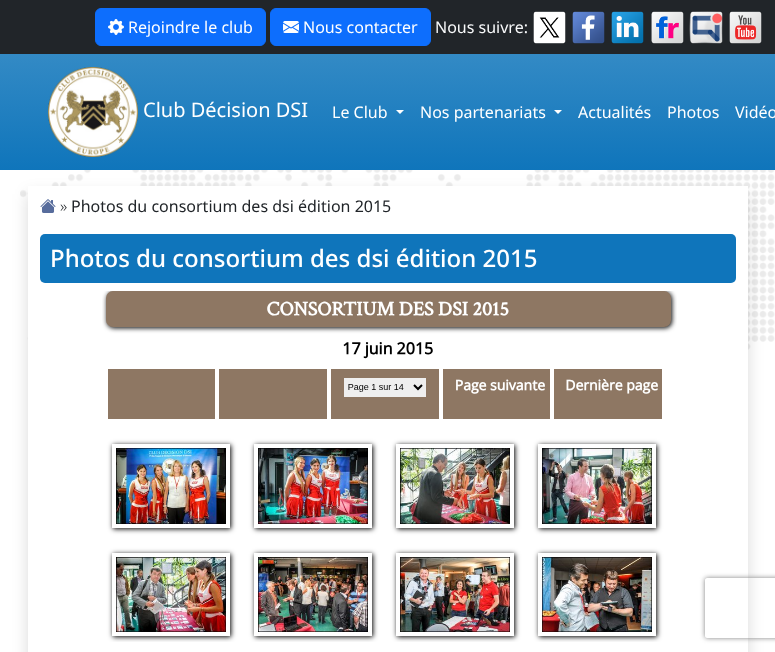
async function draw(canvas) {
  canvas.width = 775
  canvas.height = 652
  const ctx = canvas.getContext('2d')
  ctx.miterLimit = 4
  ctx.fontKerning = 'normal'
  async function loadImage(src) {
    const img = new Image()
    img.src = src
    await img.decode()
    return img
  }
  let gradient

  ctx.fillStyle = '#fff'
  ctx.fillRect(0, 0, 775, 652)
  ctx.drawImage(await loadImage('image0.png'), 20, 170, 755, 180)
  ctx.fillStyle = '#212529'
  ctx.fillRect(0, 0, 775, 54)
  ctx.fillStyle = '#0d6efd'
  ctx.beginPath()
  ctx.roundRect(95.5, 8.5, 170, 37, 5.5)
  ctx.fill()
  ctx.strokeStyle = '#0d6efd'
  ctx.stroke()
  ctx.drawImage(await loadImage('image1.png'), 108, 19, 16, 16)
  ctx.font = '16px Noto Sans'
  ctx.fillStyle = '#fff'
  ctx.fillText('Rejoindre le club', 128, 33)
  ctx.fillStyle = '#0d6efd'
  ctx.beginPath()
  ctx.roundRect(270.5, 8.5, 160, 37, 5.5)
  ctx.fill()
  ctx.stroke()
  ctx.drawImage(await loadImage('image2.png'), 283, 21, 16, 12)
  ctx.fillStyle = '#fff'
  ctx.fillText('Nous contacter', 303, 33)
  ctx.fillStyle = '#f8f9fa'
  ctx.fillText('Nous suivre:', 435, 33)
  ctx.drawImage(await loadImage('image3.png'), 533, 11, 33, 33)
  ctx.drawImage(await loadImage('image4.png'), 572, 11, 33, 33)
  ctx.drawImage(await loadImage('image5.png'), 611, 11, 33, 33)
  ctx.drawImage(await loadImage('image6.png'), 651, 11, 33, 33)
  ctx.drawImage(await loadImage('image7.png'), 689, 11, 34, 33)
  ctx.drawImage(await loadImage('image8.png'), 729, 11, 33, 33)
  ctx.fillStyle = '#00000026'
  ctx.filter = 'blur(8px)'
  ctx.beginPath()
  ctx.rect(28, 194, 720, 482)
  ctx.fill()
  ctx.filter = 'none'
  gradient = ctx.createLinearGradient(388, 54, 388, 170)
  gradient.addColorStop(0, '#338ac5')
  gradient.addColorStop(1, '#0f75bb')
  ctx.fillStyle = gradient
  ctx.fillRect(0, 54, 775, 116)
  ctx.drawImage(await loadImage('image9.png'), 48, 67, 90, 90)
  ctx.font = '20px Noto Sans'
  ctx.fillStyle = '#fff'
  ctx.fillText('Club Décision DSI', 143, 117)
  ctx.font = '16px Noto Sans'
  ctx.fillText('Le Club', 332, 118)
  ctx.beginPath()
  ctx.moveTo(396, 110)
  ctx.lineTo(404, 110)
  ctx.lineTo(400, 114)
  ctx.closePath()
  ctx.fill()
  ctx.fillText('Nos partenariats', 420, 118)
  ctx.beginPath()
  ctx.moveTo(554, 110)
  ctx.lineTo(562, 110)
  ctx.lineTo(558, 114)
  ctx.closePath()
  ctx.fill()
  ctx.fillText('Actualités', 578, 118)
  ctx.fillText('Photos', 667, 118)
  ctx.fillText('Vidéo', 735, 118)
  ctx.fillRect(28, 186, 720, 466)
  ctx.drawImage(await loadImage('image10.png'), 40, 199, 16, 14)
  ctx.font = '300 16px Noto Sans'
  ctx.fillStyle = '#212529'
  ctx.fillText('»', 60, 212)
  ctx.font = '16px Noto Sans'
  ctx.fillText('Photos du consortium des dsi édition 2015', 71, 212)
  ctx.fillStyle = '#0f75bb'
  ctx.beginPath()
  ctx.roundRect(40, 234, 696, 49, 5)
  ctx.fill()
  ctx.font = '500 24px Noto Sans'
  ctx.fillStyle = '#fff'
  ctx.fillText('Photos du consortium des dsi édition 2015', 50, 267)
  ctx.drawImage(await loadImage('image11.png'), 102, 291, 575, 351)
  ctx.save()
  ctx.beginPath()
  ctx.moveTo(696, 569)
  ctx.lineTo(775, 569)
  ctx.lineTo(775, 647)
  ctx.lineTo(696, 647)
  ctx.closePath()
  ctx.moveTo(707, 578)
  ctx.lineTo(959, 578)
  ctx.bezierCurveTo(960, 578, 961, 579, 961, 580)
  ctx.lineTo(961, 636)
  ctx.bezierCurveTo(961, 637, 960, 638, 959, 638)
  ctx.lineTo(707, 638)
  ctx.bezierCurveTo(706, 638, 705, 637, 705, 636)
  ctx.lineTo(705, 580)
  ctx.bezierCurveTo(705, 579, 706, 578, 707, 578)
  ctx.closePath()
  ctx.clip('evenodd')
  ctx.fillStyle = '#808080'
  ctx.filter = 'blur(2.5px)'
  ctx.beginPath()
  ctx.roundRect(705, 578, 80, 60, 2)
  ctx.fill()
  ctx.filter = 'none'
  ctx.restore()
}

draw(document.querySelector('canvas'))
